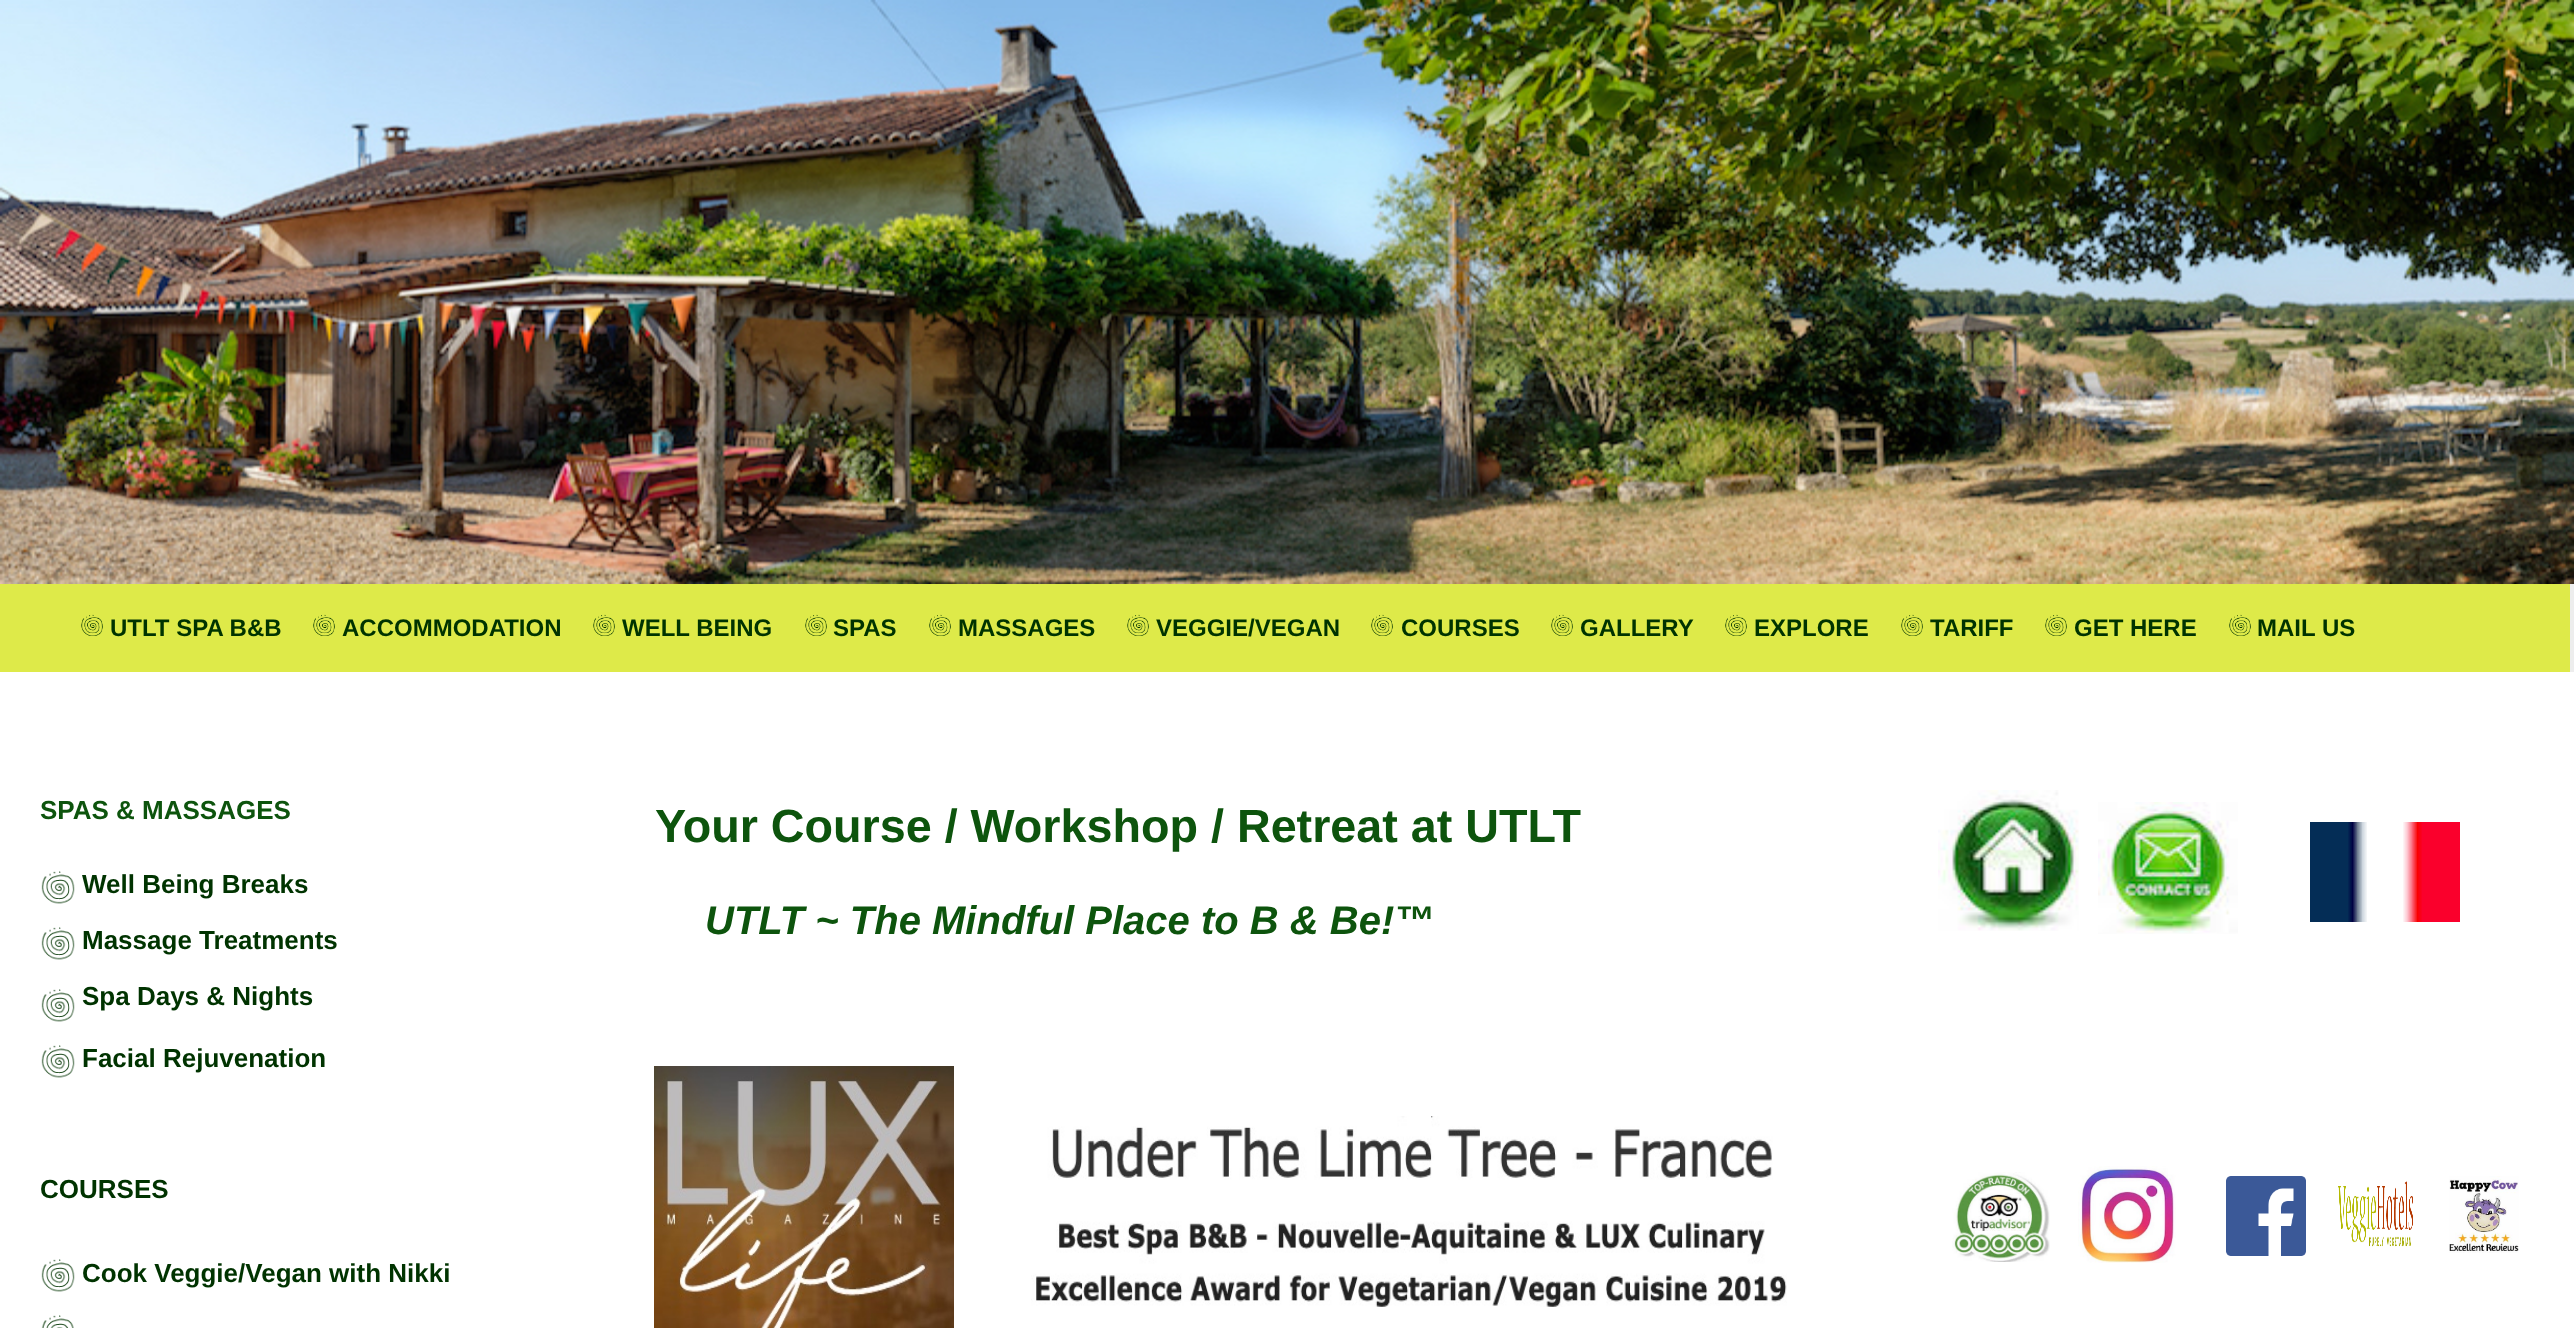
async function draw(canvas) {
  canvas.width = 2574
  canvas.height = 1328
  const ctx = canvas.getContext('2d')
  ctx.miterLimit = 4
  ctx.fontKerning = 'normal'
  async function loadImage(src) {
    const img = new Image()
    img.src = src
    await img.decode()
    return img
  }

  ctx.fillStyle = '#fff'
  ctx.fillRect(0, 0, 2574, 1328)
  ctx.fillStyle = '#ededed'
  ctx.fillRect(2570, 584, 4, 88)
  ctx.drawImage(await loadImage('image0.png'), 0, 0, 2574, 584)
  ctx.fillStyle = '#deea49'
  ctx.fillRect(0, 584, 2570, 88)
  ctx.drawImage(await loadImage('image1.png'), 81, 614, 22, 22)
  ctx.font = 'bold 24px Liberation Sans'
  ctx.fillStyle = '#030'
  ctx.fillText('UTLT SPA B&B', 110, 636)
  ctx.drawImage(await loadImage('image2.png'), 313, 614, 22, 22)
  ctx.fillText('ACCOMMODATION', 342, 636)
  ctx.drawImage(await loadImage('image1.png'), 593, 614, 22, 22)
  ctx.fillText('WELL BEING', 622, 636)
  ctx.drawImage(await loadImage('image1.png'), 805, 614, 22, 22)
  ctx.fillText('SPAS', 833, 636)
  ctx.drawImage(await loadImage('image2.png'), 929, 614, 22, 22)
  ctx.fillText('MASSAGES', 958, 636)
  ctx.drawImage(await loadImage('image1.png'), 1127, 614, 22, 22)
  ctx.fillText('VEGGIE/VEGAN', 1156, 636)
  ctx.drawImage(await loadImage('image2.png'), 1371, 614, 22, 22)
  ctx.fillText('COURSES', 1401, 636)
  ctx.drawImage(await loadImage('image1.png'), 1551, 614, 22, 22)
  ctx.fillText('GALLERY', 1580, 636)
  ctx.drawImage(await loadImage('image2.png'), 1725, 614, 22, 22)
  ctx.fillText('EXPLORE', 1754, 636)
  ctx.drawImage(await loadImage('image1.png'), 1901, 614, 22, 22)
  ctx.fillText('TARIFF', 1930, 636)
  ctx.drawImage(await loadImage('image1.png'), 2045, 614, 22, 22)
  ctx.fillText('GET HERE', 2074, 636)
  ctx.drawImage(await loadImage('image2.png'), 2229, 614, 22, 22)
  ctx.fillText('MAIL US', 2257, 636)
  ctx.font = 'bold 26px Liberation Sans'
  ctx.fillStyle = '#0d540d'
  ctx.fillText('SPAS & MASSAGES', 40, 819)
  ctx.drawImage(await loadImage('image3.png'), 41, 871, 34, 33)
  ctx.fillStyle = '#030'
  ctx.fillText('Well Being Breaks', 82, 893)
  ctx.drawImage(await loadImage('image4.png'), 41, 927, 34, 33)
  ctx.fillText('Massage Treatments', 82, 949)
  ctx.drawImage(await loadImage('image5.png'), 41, 989, 34, 33)
  ctx.fillText('Spa Days & Nights', 82, 1005)
  ctx.drawImage(await loadImage('image4.png'), 41, 1045, 34, 33)
  ctx.fillText('Facial Rejuvenation', 82, 1067)
  ctx.fillText('COURSES', 40, 1198)
  ctx.drawImage(await loadImage('image4.png'), 41, 1259, 34, 33)
  ctx.fillText('Cook Veggie/Vegan with Nikki', 82, 1282)
  ctx.drawImage(await loadImage('image6.png'), 41, 1315, 33, 13)
  ctx.font = 'bold 46.7px Liberation Sans'
  ctx.fillStyle = '#0d540d'
  ctx.fillText('Your Course / Workshop / Retreat at UTLT', 655, 842)
  ctx.font = 'italic bold 40px Liberation Sans'
  ctx.fillText('UTLT ~ The Mindful Place to B & Be!™', 705, 934)
  ctx.drawImage(await loadImage('image7.png'), 1938, 790, 141, 141)
  ctx.drawImage(await loadImage('image8.png'), 2098, 802, 140, 132)
  ctx.drawImage(await loadImage('image9.png'), 2310, 822, 150, 100)
  ctx.drawImage(await loadImage('image10.png'), 654, 1066, 300, 262)
  ctx.drawImage(await loadImage('image11.png'), 1031, 1116, 756, 191)
  ctx.drawImage(await loadImage('image12.png'), 1952, 1172, 98, 90)
  ctx.drawImage(await loadImage('image13.png'), 2078, 1166, 98, 97)
  ctx.drawImage(await loadImage('image14.png'), 2226, 1176, 80, 80)
  ctx.drawImage(await loadImage('image15.png'), 2338, 1181, 75, 66)
  ctx.drawImage(await loadImage('image16.png'), 2449, 1176, 70, 77)
}

draw(document.querySelector('canvas'))
